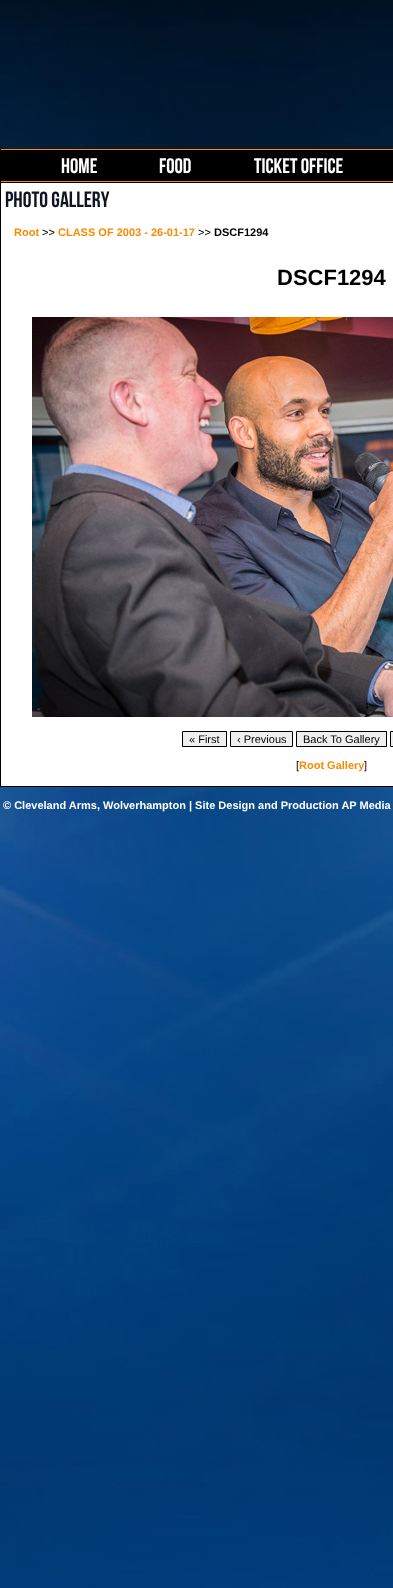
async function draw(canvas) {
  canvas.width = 393
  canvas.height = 1588
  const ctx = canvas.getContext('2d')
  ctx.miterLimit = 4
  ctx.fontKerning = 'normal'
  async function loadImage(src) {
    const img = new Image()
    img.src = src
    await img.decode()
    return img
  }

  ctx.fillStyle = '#fff'
  ctx.fillRect(0, 0, 393, 1588)
  ctx.drawImage(await loadImage('image0.png'), 0, 0, 393, 1588)
  ctx.fillStyle = '#000'
  ctx.fillRect(0, 149, 1, 34)
  ctx.fillRect(1, 150, 392, 31)
  ctx.fillStyle = '#fc8902'
  ctx.fillRect(1, 149, 392, 1)
  ctx.fillRect(1, 181, 392, 1)
  ctx.font = '21px Bebas Neue'
  ctx.fillStyle = '#fff'
  ctx.fillText('HOME', 61, 173)
  ctx.fillText('FOOD', 159, 173)
  ctx.fillText('TICKET OFFICE', 254, 173)
  ctx.fillStyle = '#000'
  ctx.fillRect(0, 182, 393, 1)
  ctx.fillRect(0, 786, 393, 1)
  ctx.fillRect(0, 182, 1, 605)
  ctx.fillStyle = '#fff'
  ctx.fillRect(1, 183, 392, 603)
  ctx.font = '22px Bebas Neue'
  ctx.fillStyle = '#0e1420'
  ctx.fillText('PHOTO GALLERY', 5, 207)
  ctx.font = 'bold 11px Liberation Sans'
  ctx.fillStyle = '#fc8902'
  ctx.fillText('Root', 14, 236)
  ctx.font = '11px Liberation Sans'
  ctx.fillStyle = '#000'
  ctx.fillText('>>', 42, 236)
  ctx.font = 'bold 11px Liberation Sans'
  ctx.fillStyle = '#fc8902'
  ctx.fillText('CLASS OF 2003 - 26-01-17', 58, 236)
  ctx.font = '11px Liberation Sans'
  ctx.fillStyle = '#000'
  ctx.fillText('>>', 198, 236)
  ctx.font = 'bold 11px Liberation Sans'
  ctx.fillText('DSCF1294', 214, 236)
  ctx.font = 'bold 22px Liberation Sans'
  ctx.fillText('DSCF1294', 277, 285)
  ctx.drawImage(await loadImage('image1.png'), 32, 317, 361, 400)
  ctx.fillStyle = '#efefef'
  ctx.beginPath()
  ctx.rect(182.5, 731.5, 44, 15)
  ctx.fill()
  ctx.strokeStyle = '#000'
  ctx.stroke()
  ctx.font = '11px Liberation Sans'
  ctx.fillStyle = '#000'
  ctx.fillText('« First', 189, 743)
  ctx.fillStyle = '#efefef'
  ctx.beginPath()
  ctx.rect(230.5, 731.5, 62, 15)
  ctx.fill()
  ctx.stroke()
  ctx.fillStyle = '#000'
  ctx.fillText('‹ Previous', 237, 743)
  ctx.fillStyle = '#efefef'
  ctx.beginPath()
  ctx.rect(296.5, 731.5, 90, 15)
  ctx.fill()
  ctx.stroke()
  ctx.fillStyle = '#000'
  ctx.fillText('Back To Gallery', 303, 743)
  ctx.fillStyle = '#efefef'
  ctx.beginPath()
  ctx.rect(390.5, 731.5, 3, 15)
  ctx.fill()
  ctx.stroke()
  ctx.fillStyle = '#000'
  ctx.fillText('[', 296, 769)
  ctx.font = 'bold 11px Liberation Sans'
  ctx.fillStyle = '#fc8902'
  ctx.fillText('Root Gallery', 299, 769)
  ctx.font = '11px Liberation Sans'
  ctx.fillStyle = '#000'
  ctx.fillText(']', 364, 769)
  ctx.font = 'bold 11px Liberation Sans'
  ctx.fillStyle = '#fff'
  ctx.fillText('© Cleveland Arms, Wolverhampton | Site Design and Production AP Media', 3, 809)
}

draw(document.querySelector('canvas'))
